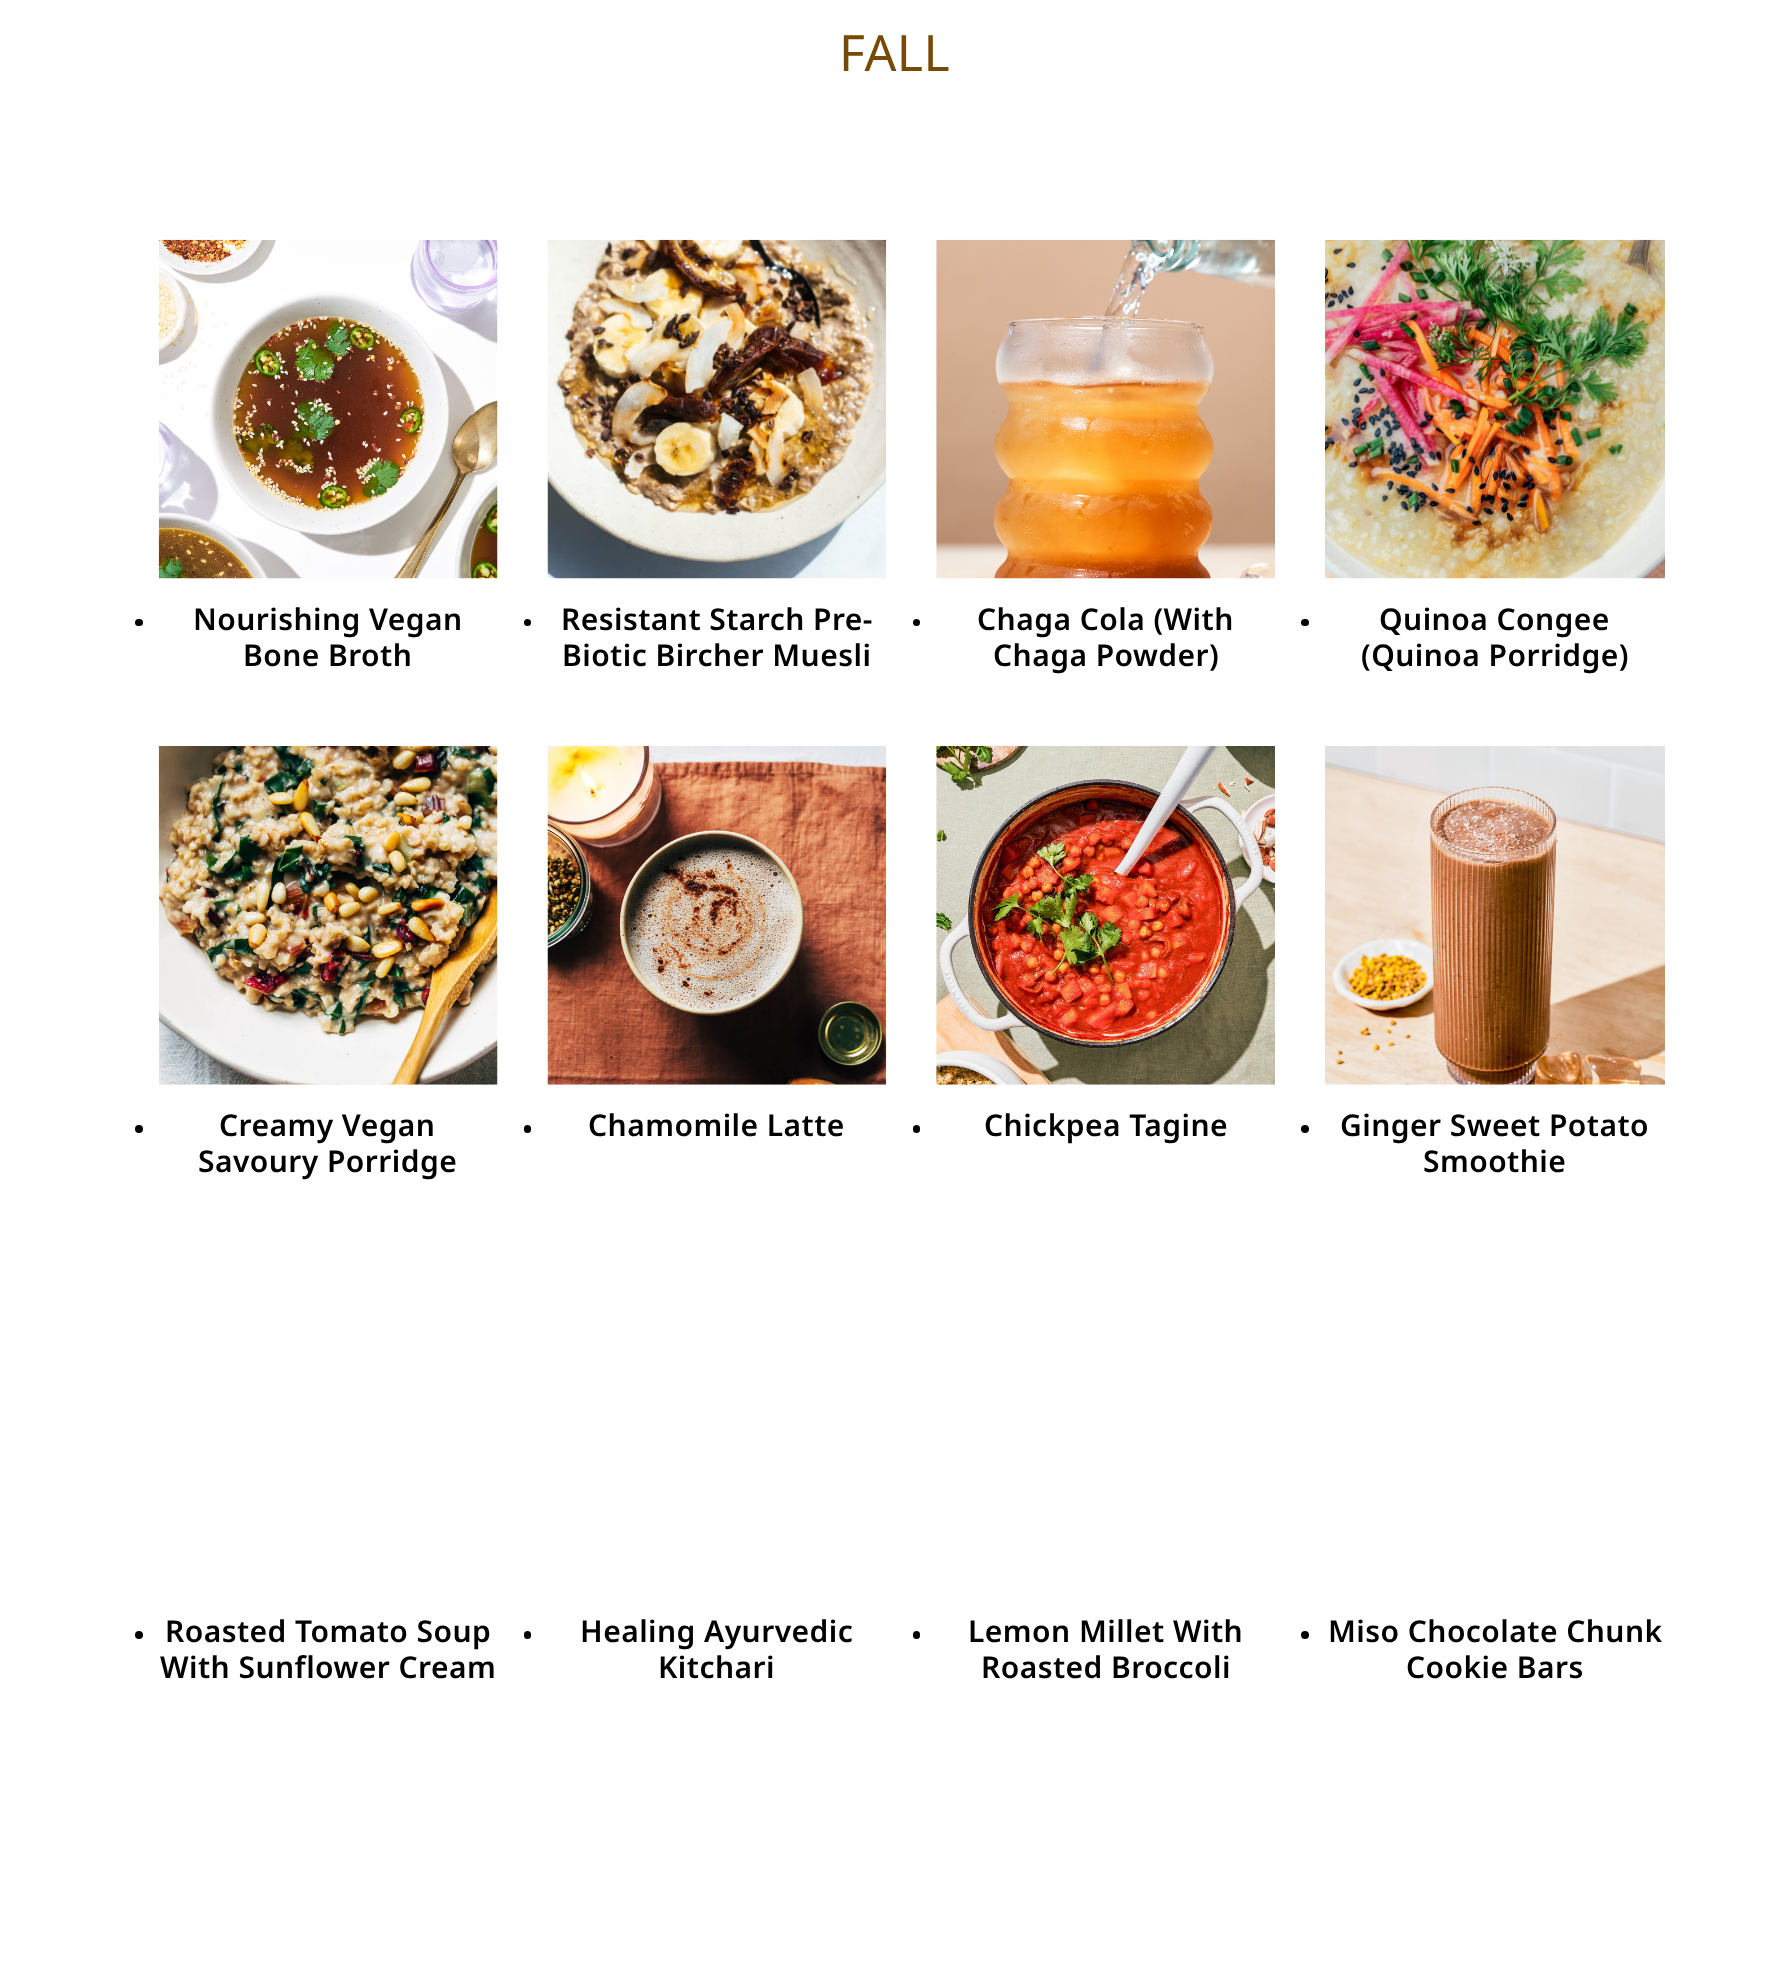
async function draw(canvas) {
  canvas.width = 1788
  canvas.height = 1981
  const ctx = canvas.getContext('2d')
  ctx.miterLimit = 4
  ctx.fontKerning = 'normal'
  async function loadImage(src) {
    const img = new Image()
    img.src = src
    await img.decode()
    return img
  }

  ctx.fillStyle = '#fff'
  ctx.fillRect(0, 0, 1788, 1981)
  ctx.letterSpacing = '0.45px'
  ctx.font = '50px Noto Sans'
  ctx.fillStyle = '#764a00'
  ctx.fillText('FALL', 839, 71)
  ctx.fillStyle = '#000'
  ctx.beginPath()
  ctx.roundRect(135, 619, 8, 7, 3.5)
  ctx.fill()
  ctx.drawImage(await loadImage('image0.png'), 158, 239, 340, 340)
  ctx.font = '600 30px Noto Sans'
  ctx.fillText('Nourishing Vegan', 193, 630)
  ctx.fillText('Bone Broth', 243, 666)
  ctx.beginPath()
  ctx.arc(527.5, 622.5, 3.5, 0, 2 * Math.PI)
  ctx.fill()
  ctx.drawImage(await loadImage('image1.png'), 547, 239, 340, 340)
  ctx.fillText('Resistant Starch Pre-', 561, 630)
  ctx.fillText('Biotic Bircher Muesli', 562, 666)
  ctx.beginPath()
  ctx.arc(916.5, 622.5, 3.5, 0, 2 * Math.PI)
  ctx.fill()
  ctx.drawImage(await loadImage('image2.png'), 936, 239, 339, 340)
  ctx.fillText('Chaga Cola (With', 977, 630)
  ctx.fillText('Chaga Powder)', 993, 666)
  ctx.beginPath()
  ctx.roundRect(1301, 619, 8, 7, 3.5)
  ctx.fill()
  ctx.drawImage(await loadImage('image3.png'), 1325, 239, 340, 340)
  ctx.fillText('Quinoa Congee', 1379, 630)
  ctx.fillText('(Quinoa Porridge)', 1361, 666)
  ctx.beginPath()
  ctx.arc(139, 1129, 4, 0, 2 * Math.PI)
  ctx.fill()
  ctx.drawImage(await loadImage('image4.png'), 158, 746, 340, 339)
  ctx.fillText('Creamy Vegan', 219, 1136)
  ctx.fillText('Savoury Porridge', 198, 1172)
  ctx.beginPath()
  ctx.roundRect(524, 1125, 7, 8, 3.5)
  ctx.fill()
  ctx.drawImage(await loadImage('image5.png'), 547, 746, 340, 339)
  ctx.fillText('Chamomile Latte', 588, 1136)
  ctx.beginPath()
  ctx.roundRect(913, 1125, 7, 8, 3.5)
  ctx.fill()
  ctx.drawImage(await loadImage('image6.png'), 936, 746, 339, 339)
  ctx.fillText('Chickpea Tagine', 984, 1136)
  ctx.beginPath()
  ctx.arc(1305, 1129, 4, 0, 2 * Math.PI)
  ctx.fill()
  ctx.drawImage(await loadImage('image7.png'), 1325, 746, 340, 339)
  ctx.fillText('Ginger Sweet Potato', 1340, 1136)
  ctx.fillText('Smoothie', 1423, 1172)
  ctx.beginPath()
  ctx.arc(139, 1635, 4, 0, 2 * Math.PI)
  ctx.fill()
  ctx.fillText('Roasted Tomato Soup', 165, 1642)
  ctx.fillText('With Sunflower Cream', 160, 1678)
  ctx.beginPath()
  ctx.roundRect(524, 1631, 7, 8, 3.5)
  ctx.fill()
  ctx.fillText('Healing Ayurvedic', 580, 1642)
  ctx.fillText('Kitchari', 658, 1678)
  ctx.beginPath()
  ctx.roundRect(913, 1631, 7, 8, 3.5)
  ctx.fill()
  ctx.fillText('Lemon Millet With', 968, 1642)
  ctx.fillText('Roasted Broccoli', 981, 1678)
  ctx.beginPath()
  ctx.arc(1305, 1635, 4, 0, 2 * Math.PI)
  ctx.fill()
  ctx.fillText('Miso Chocolate Chunk', 1328, 1642)
  ctx.fillText('Cookie Bars', 1406, 1678)
}

draw(document.querySelector('canvas'))
